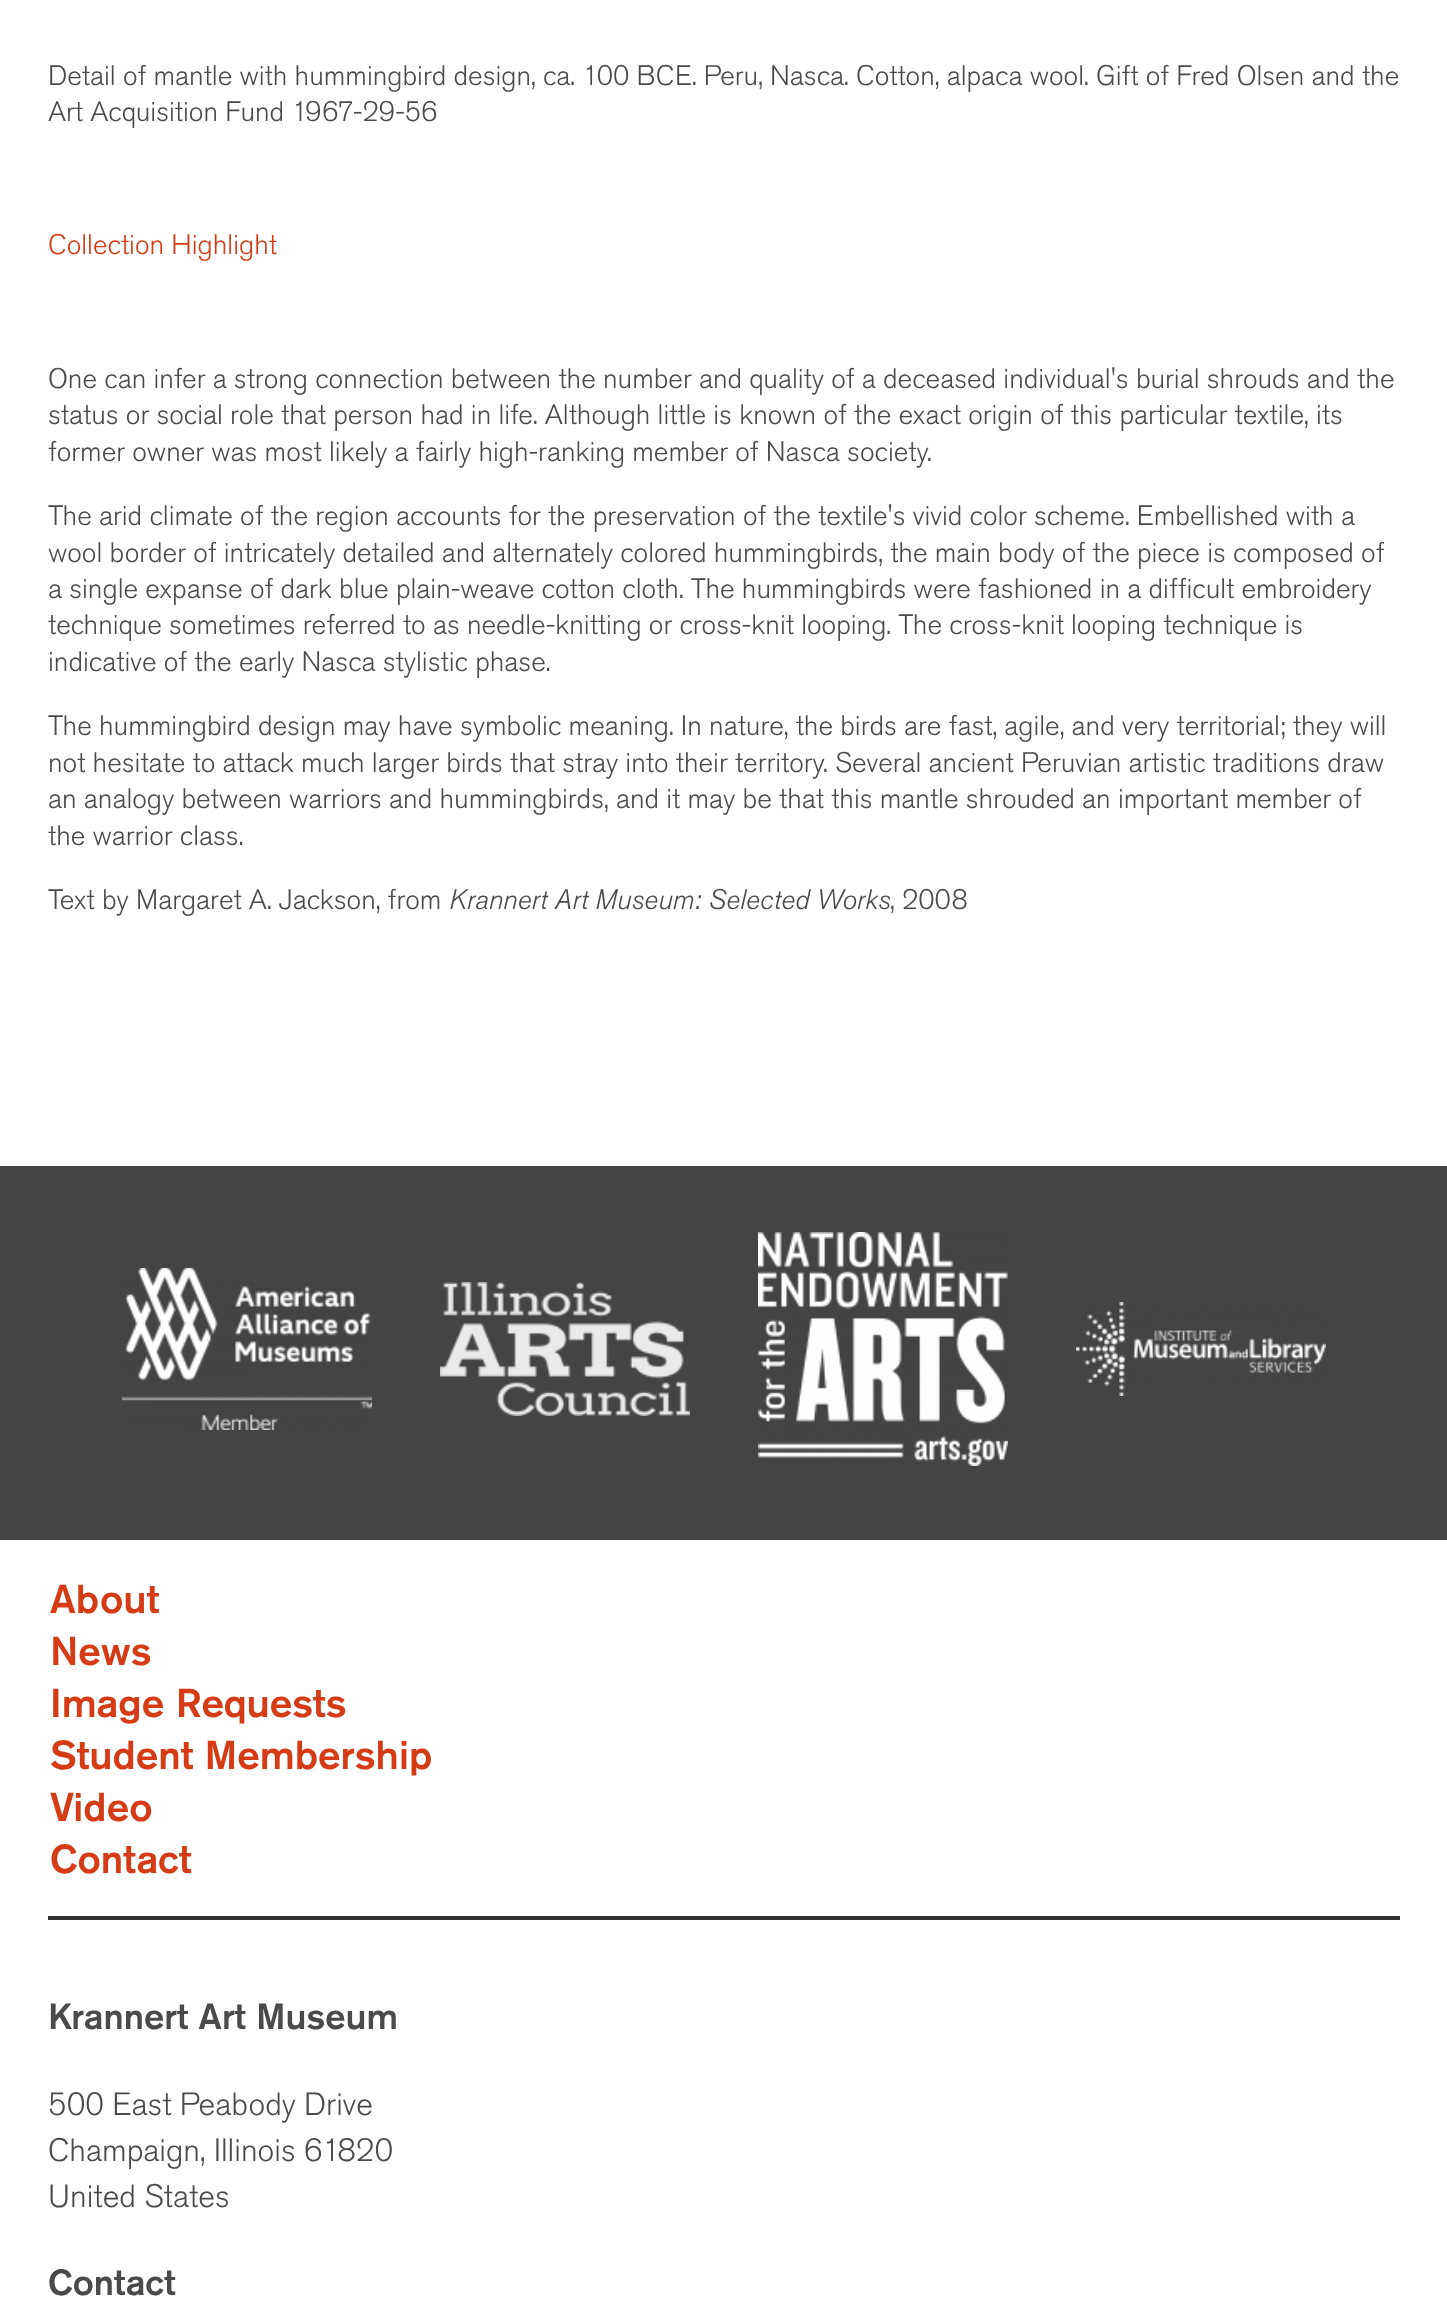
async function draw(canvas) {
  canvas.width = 1447
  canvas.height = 2323
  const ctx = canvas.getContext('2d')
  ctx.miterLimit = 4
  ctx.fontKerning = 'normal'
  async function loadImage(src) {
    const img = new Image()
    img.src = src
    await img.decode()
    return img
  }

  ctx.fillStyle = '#fff'
  ctx.fillRect(0, 0, 1447, 2323)
  ctx.font = '300 28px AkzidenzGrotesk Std'
  ctx.fillStyle = '#4a4a4a'
  ctx.fillText('Detail of mantle with hummingbird design, ca. 100 BCE. Peru, Nasca. Cotton, alpaca wool. Gift of Fred Olsen and the', 48, 85)
  ctx.fillText('Art Acquisition Fund 1967-29-56', 48, 121)
  ctx.fillStyle = '#d53c15'
  ctx.fillText('Collection Highlight', 48, 254)
  ctx.fillStyle = '#4a4a4a'
  ctx.fillText('One can infer a strong connection between the number and quality of a deceased individual\'s burial shrouds and the', 48, 388)
  ctx.fillText('status or social role that person had in life. Although little is known of the exact origin of this particular textile, its', 48, 424)
  ctx.fillText('former owner was most likely a fairly high-ranking member of Nasca society.', 48, 461)
  ctx.fillText('The arid climate of the region accounts for the preservation of the textile\'s vivid color scheme. Embellished with a', 48, 525)
  ctx.fillText('wool border of intricately detailed and alternately colored hummingbirds, the main body of the piece is composed of', 48, 562)
  ctx.fillText('a single expanse of dark blue plain-weave cotton cloth. The hummingbirds were fashioned in a difficult embroidery', 48, 598)
  ctx.fillText('technique sometimes referred to as needle-knitting or cross-knit looping. The cross-knit looping technique is', 48, 634)
  ctx.fillText('indicative of the early Nasca stylistic phase.', 48, 671)
  ctx.fillText('The hummingbird design may have symbolic meaning. In nature, the birds are fast, agile, and very territorial; they will', 48, 735)
  ctx.fillText('not hesitate to attack much larger birds that stray into their territory. Several ancient Peruvian artistic traditions draw', 48, 772)
  ctx.fillText('an analogy between warriors and hummingbirds, and it may be that this mantle shrouded an important member of', 48, 808)
  ctx.fillText('the warrior class.', 48, 845)
  ctx.fillText('Text by Margaret A. Jackson, from', 48, 909)
  ctx.font = 'italic 300 28px AkzidenzGrotesk Std'
  ctx.fillText('Krannert Art Museum: Selected Works', 449, 909)
  ctx.font = '300 28px AkzidenzGrotesk Std'
  ctx.fillText(', 2008', 890, 909)
  ctx.fillStyle = '#444'
  ctx.fillRect(0, 1166, 1447, 374)
  ctx.drawImage(await loadImage('image0.png'), 122, 1268, 250, 162)
  ctx.drawImage(await loadImage('image1.png'), 440, 1282, 250, 134)
  ctx.drawImage(await loadImage('image2.png'), 758, 1232, 250, 234)
  ctx.drawImage(await loadImage('image3.png'), 1076, 1302, 250, 94)
  ctx.fillStyle = '#333'
  ctx.fillRect(48, 1916, 1352, 4)
  ctx.font = '500 40px AkzidenzGrotesk Std'
  ctx.fillStyle = '#d53c15'
  ctx.fillText('About', 50, 1613)
  ctx.fillText('News', 50, 1665)
  ctx.fillText('Image Requests', 50, 1717)
  ctx.fillText('Student Membership', 50, 1769)
  ctx.fillText('Video', 50, 1821)
  ctx.fillText('Contact', 50, 1873)
  ctx.font = '500 36px AkzidenzGrotesk Std'
  ctx.fillStyle = '#4a4a4a'
  ctx.fillText('Krannert Art Museum', 48, 2029)
  ctx.font = '300 32px AkzidenzGrotesk Std'
  ctx.fillText('500 East Peabody Drive', 48, 2115)
  ctx.fillText('Champaign, Illinois 61820', 48, 2161)
  ctx.fillText('United States', 48, 2207)
  ctx.font = '500 36px AkzidenzGrotesk Std'
  ctx.fillText('Contact', 48, 2295)
}

draw(document.querySelector('canvas'))
